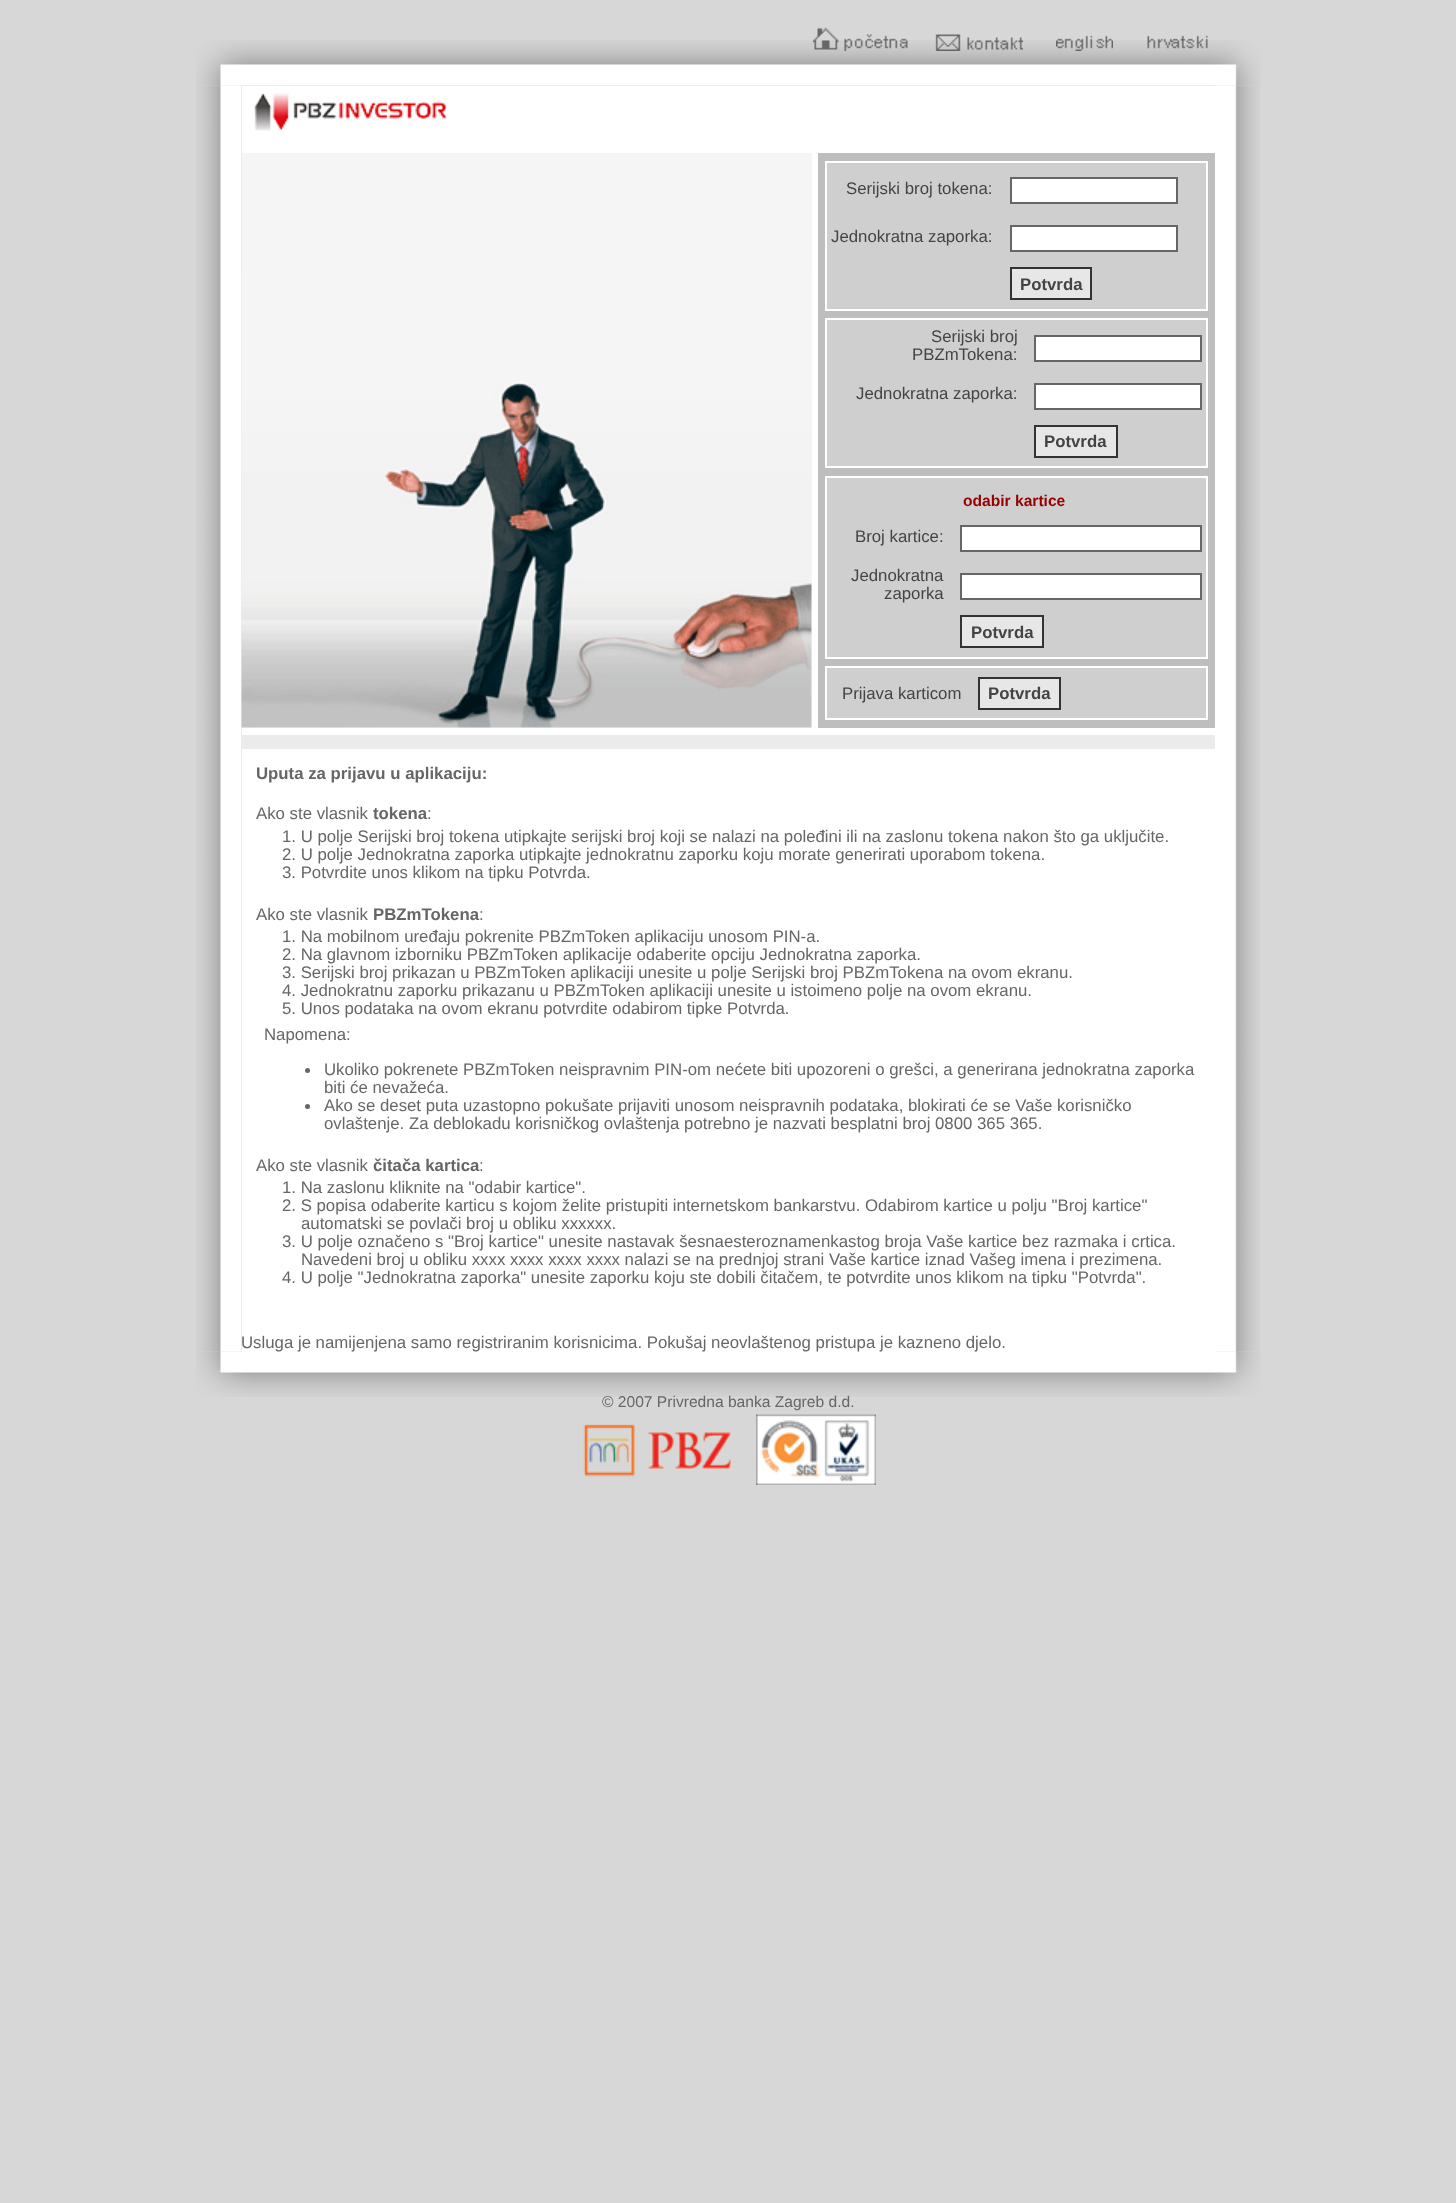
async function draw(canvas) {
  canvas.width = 1456
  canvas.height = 2203
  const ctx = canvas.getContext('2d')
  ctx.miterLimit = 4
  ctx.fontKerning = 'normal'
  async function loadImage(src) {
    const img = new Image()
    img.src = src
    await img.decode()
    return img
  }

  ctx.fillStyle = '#d7d7d7'
  ctx.fillRect(0, 0, 1456, 2203)
  ctx.drawImage(await loadImage('image0.png'), 196, 40, 1065, 46)
  ctx.drawImage(await loadImage('image1.png'), 813, 27, 95, 24)
  ctx.drawImage(await loadImage('image2.png'), 935, 34, 88, 17)
  ctx.drawImage(await loadImage('image3.png'), 1056, 35, 57, 16)
  ctx.drawImage(await loadImage('image4.png'), 1147, 35, 61, 14)
  ctx.drawImage(await loadImage('image5.png'), 196, 85, 46, 1267)
  ctx.fillStyle = '#fff'
  ctx.fillRect(242, 86, 973, 1266)
  ctx.drawImage(await loadImage('image6.png'), 254, 93, 193, 38)
  ctx.fillStyle = '#f5f5f5'
  ctx.fillRect(242, 153, 570, 575)
  ctx.drawImage(await loadImage('image7.png'), 241, 272, 571, 456)
  ctx.fillStyle = '#bebebe'
  ctx.fillRect(818, 153, 397, 575)
  ctx.fillStyle = '#cfcfcf'
  ctx.beginPath()
  ctx.rect(826, 162, 381, 148)
  ctx.fill()
  ctx.strokeStyle = '#fff'
  ctx.lineWidth = 2
  ctx.stroke()
  ctx.font = '16.8px Liberation Sans'
  ctx.fillStyle = '#444'
  ctx.fillText('Serijski broj tokena:', 846, 194)
  ctx.fillStyle = '#fff'
  ctx.beginPath()
  ctx.rect(1011, 178, 166, 25)
  ctx.fill()
  ctx.strokeStyle = '#666'
  ctx.stroke()
  ctx.fillStyle = '#444'
  ctx.fillText('Jednokratna zaporka:', 831, 242)
  ctx.fillStyle = '#fff'
  ctx.beginPath()
  ctx.rect(1011, 226, 166, 25)
  ctx.fill()
  ctx.stroke()
  ctx.fillStyle = '#e7e7e7'
  ctx.beginPath()
  ctx.rect(1011, 268, 80, 31)
  ctx.fill()
  ctx.strokeStyle = '#333'
  ctx.stroke()
  ctx.font = 'bold 16.8px Liberation Sans'
  ctx.fillStyle = '#444'
  ctx.fillText('Potvrda', 1020, 290)
  ctx.fillStyle = '#cfcfcf'
  ctx.beginPath()
  ctx.rect(826, 319, 381, 148)
  ctx.fill()
  ctx.strokeStyle = '#fff'
  ctx.stroke()
  ctx.font = '16.8px Liberation Sans'
  ctx.fillStyle = '#444'
  ctx.fillText('Serijski broj', 931, 342)
  ctx.fillText('PBZmTokena:', 912, 360)
  ctx.fillStyle = '#fff'
  ctx.beginPath()
  ctx.rect(1035, 336, 166, 25)
  ctx.fill()
  ctx.strokeStyle = '#666'
  ctx.stroke()
  ctx.fillStyle = '#444'
  ctx.fillText('Jednokratna zaporka:', 856, 399)
  ctx.fillStyle = '#fff'
  ctx.beginPath()
  ctx.rect(1035, 384, 166, 25)
  ctx.fill()
  ctx.stroke()
  ctx.fillStyle = '#e7e7e7'
  ctx.beginPath()
  ctx.rect(1035, 426, 82, 31)
  ctx.fill()
  ctx.strokeStyle = '#333'
  ctx.stroke()
  ctx.font = 'bold 16.8px Liberation Sans'
  ctx.fillStyle = '#444'
  ctx.fillText('Potvrda', 1044, 447)
  ctx.fillStyle = '#cfcfcf'
  ctx.beginPath()
  ctx.rect(826, 477, 381, 181)
  ctx.fill()
  ctx.strokeStyle = '#fff'
  ctx.stroke()
  ctx.font = 'bold 15.6px Liberation Sans'
  ctx.fillStyle = '#900'
  ctx.fillText('odabir kartice', 963, 506)
  ctx.font = '16.8px Liberation Sans'
  ctx.fillStyle = '#444'
  ctx.fillText('Broj kartice:', 855, 542)
  ctx.fillStyle = '#fff'
  ctx.beginPath()
  ctx.rect(961, 526, 240, 25)
  ctx.fill()
  ctx.strokeStyle = '#666'
  ctx.stroke()
  ctx.fillStyle = '#444'
  ctx.fillText('Jednokratna', 851, 581)
  ctx.fillText('zaporka', 884, 599)
  ctx.fillStyle = '#fff'
  ctx.beginPath()
  ctx.rect(961, 574, 240, 25)
  ctx.fill()
  ctx.stroke()
  ctx.fillStyle = '#e7e7e7'
  ctx.beginPath()
  ctx.rect(961, 616, 82, 31)
  ctx.fill()
  ctx.strokeStyle = '#333'
  ctx.stroke()
  ctx.font = 'bold 16.8px Liberation Sans'
  ctx.fillStyle = '#444'
  ctx.fillText('Potvrda', 971, 638)
  ctx.fillStyle = '#cfcfcf'
  ctx.beginPath()
  ctx.rect(826, 667, 381, 52)
  ctx.fill()
  ctx.strokeStyle = '#fff'
  ctx.stroke()
  ctx.font = '16.8px Liberation Sans'
  ctx.fillStyle = '#444'
  ctx.fillText('Prijava karticom', 842, 699)
  ctx.fillStyle = '#e7e7e7'
  ctx.beginPath()
  ctx.rect(979, 678, 81, 31)
  ctx.fill()
  ctx.strokeStyle = '#333'
  ctx.stroke()
  ctx.font = 'bold 16.8px Liberation Sans'
  ctx.fillStyle = '#444'
  ctx.fillText('Potvrda', 988, 699)
  ctx.fillStyle = '#ebebeb'
  ctx.fillRect(242, 735, 973, 14)
  ctx.fillStyle = '#666'
  ctx.fillText('Uputa za prijavu u aplikaciju:', 256, 779)
  ctx.font = '16.8px Liberation Sans'
  ctx.fillText('Ako ste vlasnik', 256, 819)
  ctx.font = 'bold 16.8px Liberation Sans'
  ctx.fillText('tokena', 373, 819)
  ctx.font = '16.8px Liberation Sans'
  ctx.fillText(':', 427, 819)
  ctx.fillText('1. U polje Serijski broj tokena utipkajte serijski broj koji se nalazi na poleđini ili na zaslonu tokena nakon što ga uključite.', 282, 842)
  ctx.fillText('2. U polje Jednokratna zaporka utipkajte jednokratnu zaporku koju morate generirati uporabom tokena.', 282, 860)
  ctx.fillText('3. Potvrdite unos klikom na tipku Potvrda.', 282, 878)
  ctx.fillText('Ako ste vlasnik', 256, 920)
  ctx.font = 'bold 16.8px Liberation Sans'
  ctx.fillText('PBZmTokena', 373, 920)
  ctx.font = '16.8px Liberation Sans'
  ctx.fillText(':', 479, 920)
  ctx.fillText('1. Na mobilnom uređaju pokrenite PBZmToken aplikaciju unosom PIN-a.', 282, 942)
  ctx.fillText('2. Na glavnom izborniku PBZmToken aplikacije odaberite opciju Jednokratna zaporka.', 282, 960)
  ctx.fillText('3. Serijski broj prikazan u PBZmToken aplikaciji unesite u polje Serijski broj PBZmTokena na ovom ekranu.', 282, 978)
  ctx.fillText('4. Jednokratnu zaporku prikazanu u PBZmToken aplikaciji unesite u istoimeno polje na ovom ekranu.', 282, 996)
  ctx.fillText('5. Unos podataka na ovom ekranu potvrdite odabirom tipke Potvrda.', 282, 1014)
  ctx.fillText('Napomena:', 264, 1040)
  ctx.beginPath()
  ctx.arc(307.5, 1070.5, 2.5, 0, 2 * Math.PI)
  ctx.fill()
  ctx.fillText('Ukoliko pokrenete PBZmToken neispravnim PIN-om nećete biti upozoreni o grešci, a generirana jednokratna zaporka', 324, 1075)
  ctx.fillText('biti će nevažeća.', 324, 1093)
  ctx.beginPath()
  ctx.arc(307.5, 1106.5, 2.5, 0, 2 * Math.PI)
  ctx.fill()
  ctx.fillText('Ako se deset puta uzastopno pokušate prijaviti unosom neispravnih podataka, blokirati će se Vaše korisničko', 324, 1111)
  ctx.fillText('ovlaštenje. Za deblokadu korisničkog ovlaštenja potrebno je nazvati besplatni broj 0800 365 365.', 324, 1129)
  ctx.fillText('Ako ste vlasnik', 256, 1171)
  ctx.font = 'bold 16.8px Liberation Sans'
  ctx.fillText('čitača kartica', 373, 1171)
  ctx.font = '16.8px Liberation Sans'
  ctx.fillText(':', 479, 1171)
  ctx.fillText('1. Na zaslonu kliknite na "odabir kartice".', 282, 1193)
  ctx.fillText('2. S popisa odaberite karticu s kojom želite pristupiti internetskom bankarstvu. Odabirom kartice u polju "Broj kartice"', 282, 1211)
  ctx.fillText('automatski se povlači broj u obliku xxxxxx.', 301, 1229)
  ctx.fillText('3. U polje označeno s "Broj kartice" unesite nastavak šesnaesteroznamenkastog broja Vaše kartice bez razmaka i crtica.', 282, 1247)
  ctx.fillText('Navedeni broj u obliku xxxx xxxx xxxx xxxx nalazi se na prednjoj strani Vaše kartice iznad Vašeg imena i prezimena.', 301, 1265)
  ctx.fillText('4. U polje "Jednokratna zaporka" unesite zaporku koju ste dobili čitačem, te potvrdite unos klikom na tipku "Potvrda".', 282, 1283)
  ctx.drawImage(await loadImage('image8.png'), 1215, 85, 45, 1267)
  ctx.drawImage(await loadImage('image9.png'), 196, 1351, 1065, 46)
  ctx.fillText('Usluga je namijenjena samo registriranim korisnicima. Pokušaj neovlaštenog pristupa je kazneno djelo.', 241, 1348)
  ctx.font = '15.6px Liberation Sans'
  ctx.fillText('© 2007 Privredna banka Zagreb d.d.', 602, 1407)
  ctx.drawImage(await loadImage('image10.png'), 583, 1424, 148, 53)
  ctx.drawImage(await loadImage('image11.png'), 756, 1414, 120, 71)
}

draw(document.querySelector('canvas'))
